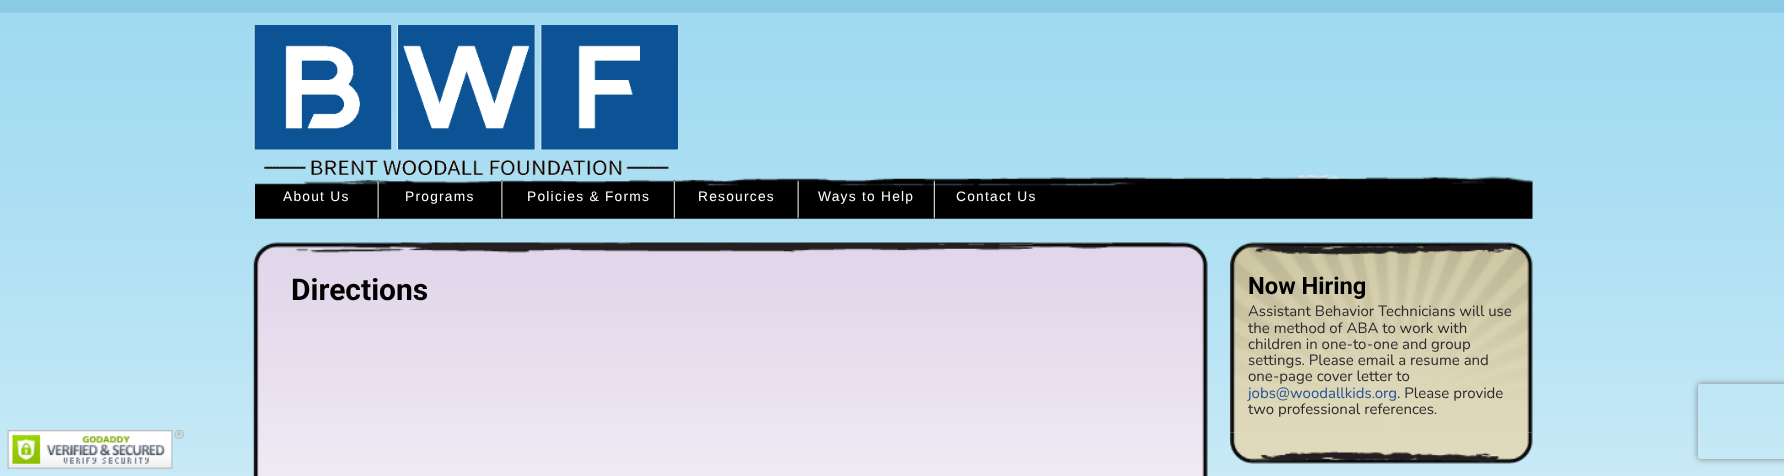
async function draw(canvas) {
  canvas.width = 1784
  canvas.height = 476
  const ctx = canvas.getContext('2d')
  ctx.miterLimit = 4
  ctx.fontKerning = 'normal'
  async function loadImage(src) {
    const img = new Image()
    img.src = src
    await img.decode()
    return img
  }

  ctx.fillStyle = '#fff'
  ctx.fillRect(0, 0, 1784, 476)
  ctx.drawImage(await loadImage('image0.png'), 0, 0, 1784, 476)
  ctx.drawImage(await loadImage('image1.png'), 7, 430, 177, 39)
  ctx.drawImage(await loadImage('image2.png'), 253, 25, 426, 150)
  ctx.drawImage(await loadImage('image3.png'), 255, 175, 1278, 44)
  ctx.drawImage(await loadImage('image4.png'), 377, 179, 2, 40)
  ctx.letterSpacing = '1.25px'
  ctx.font = '13.75px Liberation Sans'
  ctx.fillText('About Us', 283, 201)
  ctx.drawImage(await loadImage('image5.png'), 501, 179, 2, 40)
  ctx.fillText('Programs', 405, 201)
  ctx.drawImage(await loadImage('image6.png'), 673, 179, 2, 40)
  ctx.fillText('Policies & Forms', 527, 201)
  ctx.drawImage(await loadImage('image7.png'), 797, 180, 2, 39)
  ctx.fillText('Resources', 698, 201)
  ctx.drawImage(await loadImage('image8.png'), 933, 180, 2, 39)
  ctx.fillText('Ways to Help', 818, 201)
  ctx.fillText('Contact Us', 956, 201)
  ctx.drawImage(await loadImage('image9.png'), 253, 242, 955, 234)
  ctx.letterSpacing = '0px'
  ctx.font = 'bold 30px Roboto'
  ctx.fillStyle = '#000'
  ctx.fillText('Directions', 291, 300)
  ctx.drawImage(await loadImage('image10.png'), 1230, 242, 303, 191)
  ctx.font = 'bold 23.75px Roboto'
  ctx.fillText('Now Hiring', 1248, 294)
  ctx.font = '15px Nunito'
  ctx.fillStyle = '#2b2b2b'
  ctx.fillText('Assistant Behavior Technicians will use', 1248, 316)
  ctx.fillText('the method of ABA to work with', 1248, 333)
  ctx.fillText('children in one-to-one and group', 1248, 349)
  ctx.fillText('settings. Please email a resume and', 1248, 365)
  ctx.fillText('one-page cover letter to', 1248, 381)
  ctx.fillStyle = '#235296'
  ctx.fillText('jobs@woodallkids.org', 1248, 398)
  ctx.fillStyle = '#2b2b2b'
  ctx.fillText('. Please provide', 1397, 398)
  ctx.fillText('two professional references.', 1248, 414)
  ctx.drawImage(await loadImage('image11.png'), 1230, 432, 303, 32)
  ctx.save()
  ctx.beginPath()
  ctx.moveTo(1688, 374)
  ctx.lineTo(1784, 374)
  ctx.lineTo(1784, 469)
  ctx.lineTo(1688, 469)
  ctx.closePath()
  ctx.moveTo(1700.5, 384)
  ctx.lineTo(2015.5, 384)
  ctx.bezierCurveTo(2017, 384, 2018, 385, 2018, 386.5)
  ctx.lineTo(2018, 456.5)
  ctx.bezierCurveTo(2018, 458, 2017, 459, 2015.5, 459)
  ctx.lineTo(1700.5, 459)
  ctx.bezierCurveTo(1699, 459, 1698, 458, 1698, 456.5)
  ctx.lineTo(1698, 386.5)
  ctx.bezierCurveTo(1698, 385, 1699, 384, 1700.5, 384)
  ctx.closePath()
  ctx.clip('evenodd')
  ctx.fillStyle = '#808080'
  ctx.filter = 'blur(3px)'
  ctx.beginPath()
  ctx.roundRect(1698, 384, 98, 75, 2.5)
  ctx.fill()
  ctx.filter = 'none'
  ctx.restore()
}

draw(document.querySelector('canvas'))
